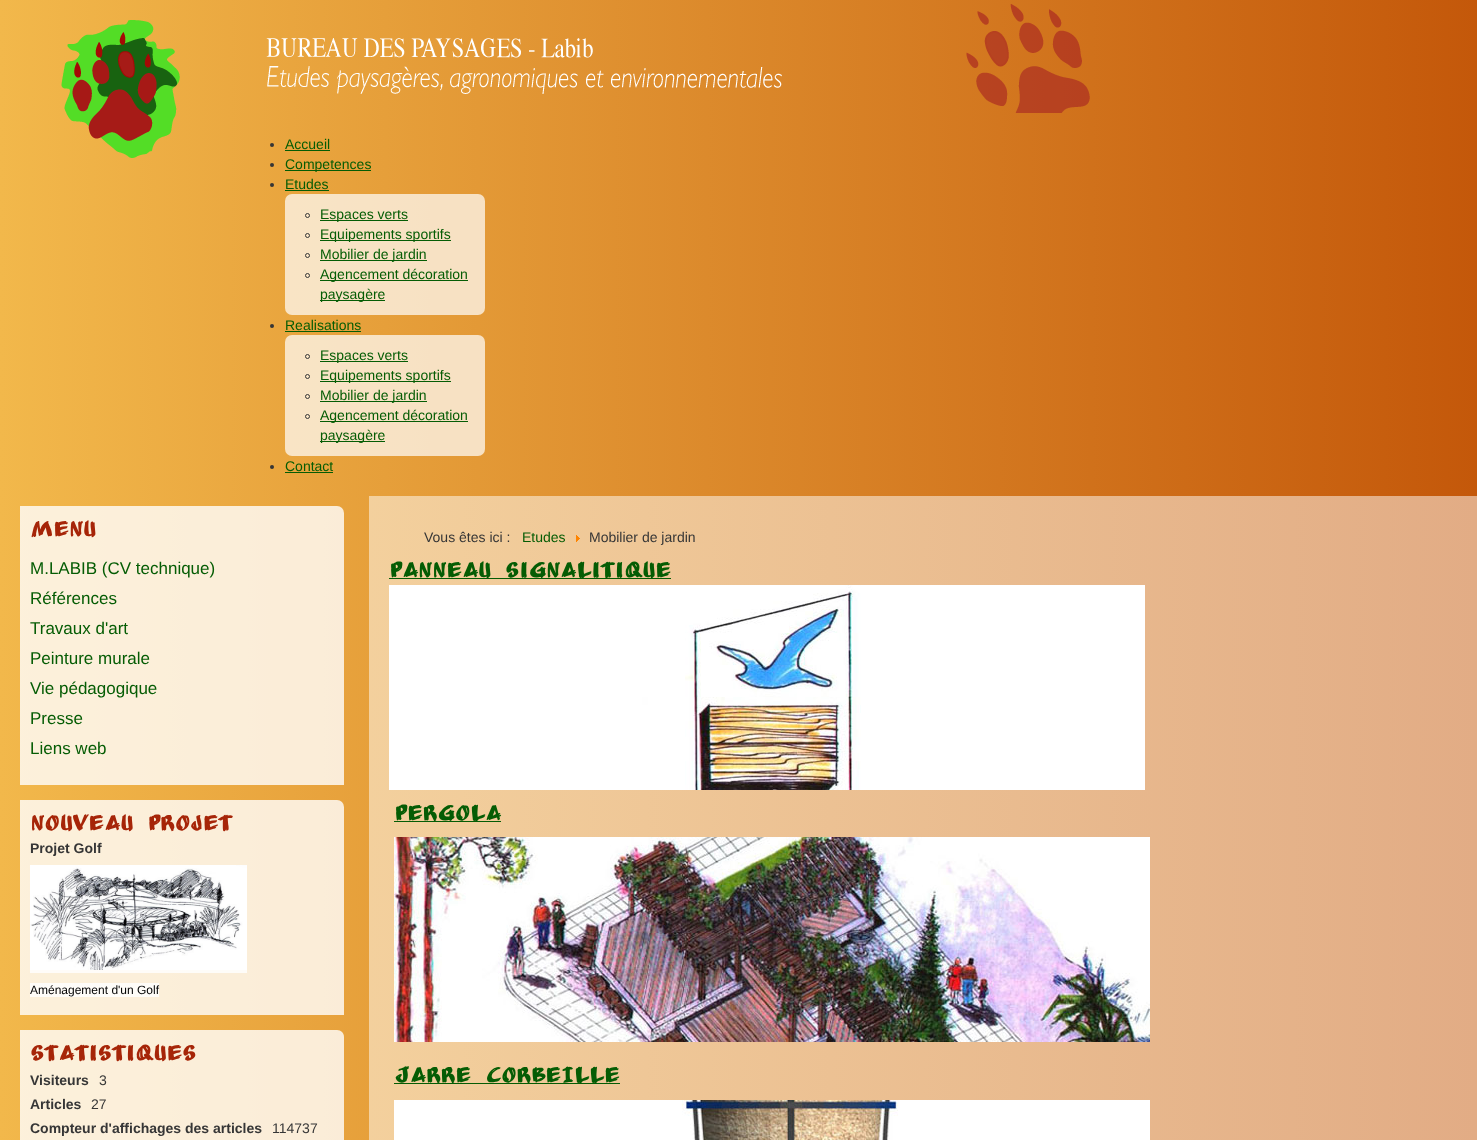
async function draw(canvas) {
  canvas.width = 1477
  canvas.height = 1140
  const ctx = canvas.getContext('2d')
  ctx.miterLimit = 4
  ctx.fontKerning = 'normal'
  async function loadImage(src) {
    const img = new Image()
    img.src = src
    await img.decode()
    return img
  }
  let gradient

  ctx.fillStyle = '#fff'
  ctx.fillRect(0, 0, 1477, 1140)
  gradient = ctx.createLinearGradient(0, 0, 1477, 0)
  gradient.addColorStop(0, '#f2b84b')
  gradient.addColorStop(1, '#c4580a')
  ctx.fillStyle = gradient
  ctx.fillRect(0, 0, 1477, 1140)
  gradient = ctx.createLinearGradient(0, 0, 1477, 0)
  gradient.addColorStop(0, '#f9dca5')
  gradient.addColorStop(1, '#e2ac85')
  ctx.fillStyle = gradient
  ctx.fillRect(369, 496, 1108, 644)
  ctx.drawImage(await loadImage('image0.png'), 266, 4, 824, 109)
  ctx.drawImage(await loadImage('image1.png'), 61, 20, 119, 138)
  ctx.fillStyle = '#363636'
  ctx.beginPath()
  ctx.arc(272, 145, 2, 0, 2 * Math.PI)
  ctx.fill()
  ctx.font = '14px Liberation Sans'
  ctx.fillStyle = '#055c04'
  ctx.fillText('Accueil', 285, 149)
  ctx.fillRect(285, 150, 45, 1)
  ctx.fillStyle = '#363636'
  ctx.beginPath()
  ctx.arc(272, 165, 2, 0, 2 * Math.PI)
  ctx.fill()
  ctx.fillStyle = '#055c04'
  ctx.fillRect(285, 170, 86, 1)
  ctx.fillText('Competences', 285, 169)
  ctx.fillStyle = '#363636'
  ctx.beginPath()
  ctx.arc(272, 185, 2, 0, 2 * Math.PI)
  ctx.fill()
  ctx.fillStyle = '#055c04'
  ctx.fillText('Etudes', 285, 189)
  ctx.fillRect(285, 190, 44, 1)
  ctx.fillStyle = '#ffffffb3'
  ctx.beginPath()
  ctx.roundRect(285, 194, 200, 121, 7)
  ctx.fill()
  ctx.beginPath()
  ctx.arc(307.5, 215.5, 2, 0, 2 * Math.PI)
  ctx.strokeStyle = '#363636'
  ctx.stroke()
  ctx.fillStyle = '#055c04'
  ctx.fillRect(320, 220, 88, 1)
  ctx.fillText('Espaces verts', 320, 219)
  ctx.beginPath()
  ctx.arc(307.5, 235.5, 2, 0, 2 * Math.PI)
  ctx.stroke()
  ctx.fillRect(320, 240, 131, 1)
  ctx.fillText('Equipements sportifs', 320, 239)
  ctx.beginPath()
  ctx.arc(307.5, 255.5, 2, 0, 2 * Math.PI)
  ctx.stroke()
  ctx.fillRect(320, 260, 107, 1)
  ctx.fillText('Mobilier de jardin', 320, 259)
  ctx.beginPath()
  ctx.arc(307.5, 275.5, 2, 0, 2 * Math.PI)
  ctx.stroke()
  ctx.fillRect(320, 280, 148, 1)
  ctx.fillText('Agencement décoration', 320, 279)
  ctx.fillRect(320, 300, 65, 1)
  ctx.fillText('paysagère', 320, 299)
  ctx.fillStyle = '#363636'
  ctx.beginPath()
  ctx.arc(272, 326, 2, 0, 2 * Math.PI)
  ctx.fill()
  ctx.fillStyle = '#055c04'
  ctx.fillText('Realisations', 285, 330)
  ctx.fillRect(285, 331, 76, 1)
  ctx.fillStyle = '#ffffffb3'
  ctx.beginPath()
  ctx.roundRect(285, 335, 200, 121, 7)
  ctx.fill()
  ctx.beginPath()
  ctx.arc(307.5, 356.5, 2, 0, 2 * Math.PI)
  ctx.stroke()
  ctx.fillStyle = '#055c04'
  ctx.fillRect(320, 361, 88, 1)
  ctx.fillText('Espaces verts', 320, 360)
  ctx.beginPath()
  ctx.arc(307.5, 376.5, 2, 0, 2 * Math.PI)
  ctx.stroke()
  ctx.fillRect(320, 381, 131, 1)
  ctx.fillText('Equipements sportifs', 320, 380)
  ctx.beginPath()
  ctx.arc(307.5, 396.5, 2, 0, 2 * Math.PI)
  ctx.stroke()
  ctx.fillRect(320, 401, 107, 1)
  ctx.fillText('Mobilier de jardin', 320, 400)
  ctx.beginPath()
  ctx.arc(307.5, 416.5, 2, 0, 2 * Math.PI)
  ctx.stroke()
  ctx.fillRect(320, 421, 148, 1)
  ctx.fillText('Agencement décoration', 320, 420)
  ctx.fillRect(320, 441, 65, 1)
  ctx.fillText('paysagère', 320, 440)
  ctx.fillStyle = '#363636'
  ctx.beginPath()
  ctx.arc(272, 467, 2, 0, 2 * Math.PI)
  ctx.fill()
  ctx.fillStyle = '#055c04'
  ctx.fillText('Contact', 285, 471)
  ctx.fillRect(285, 472, 48, 1)
  ctx.fillStyle = '#ffffffcc'
  ctx.beginPath()
  ctx.roundRect(20, 506, 324, 279, [0, 7, 0, 0])
  ctx.fill()
  ctx.font = 'bold 18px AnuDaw'
  ctx.fillStyle = '#a62508'
  ctx.fillText('Menu', 30, 536)
  ctx.font = '17px Liberation Sans'
  ctx.fillStyle = '#055c04'
  ctx.fillText('M.LABIB (CV technique)', 30, 574)
  ctx.fillText('Références', 30, 604)
  ctx.fillText('Travaux d\'art', 30, 634)
  ctx.fillText('Peinture murale', 30, 664)
  ctx.fillText('Vie pédagogique', 30, 694)
  ctx.fillText('Presse', 30, 724)
  ctx.fillText('Liens web', 30, 754)
  ctx.fillStyle = '#ffffffcc'
  ctx.beginPath()
  ctx.roundRect(20, 800, 324, 215, [0, 7, 0, 0])
  ctx.fill()
  ctx.font = 'bold 18px AnuDaw'
  ctx.fillStyle = '#a62508'
  ctx.fillText('Nouveau Projet', 30, 830)
  ctx.font = 'bold 14px Liberation Sans'
  ctx.fillStyle = '#363636'
  ctx.fillText('Projet Golf', 30, 853)
  ctx.drawImage(await loadImage('image2.png'), 30, 865, 217, 105)
  ctx.fillStyle = '#ffffffcc'
  ctx.fillRect(30, 970, 217, 3)
  ctx.fillStyle = '#fefcf8'
  ctx.fillRect(30, 983, 129, 14)
  ctx.font = '12px Liberation Sans'
  ctx.fillStyle = '#000'
  ctx.fillText('Aménagement d\'un Golf', 30, 994)
  ctx.fillStyle = '#ffffffcc'
  ctx.beginPath()
  ctx.moveTo(20, 1030)
  ctx.lineTo(337, 1030)
  ctx.bezierCurveTo(341, 1030, 344, 1033, 344, 1037)
  ctx.lineTo(344, 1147)
  ctx.lineTo(20, 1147)
  ctx.closePath()
  ctx.fill()
  ctx.font = 'bold 18px AnuDaw'
  ctx.fillStyle = '#a62508'
  ctx.fillText('Statistiques', 30, 1060)
  ctx.font = 'bold 14px Liberation Sans'
  ctx.fillStyle = '#363636'
  ctx.fillText('Visiteurs', 30, 1085)
  ctx.font = '14px Liberation Sans'
  ctx.fillText('3', 99, 1085)
  ctx.font = 'bold 14px Liberation Sans'
  ctx.fillText('Articles', 30, 1109)
  ctx.font = '14px Liberation Sans'
  ctx.fillText('27', 91, 1109)
  ctx.font = 'bold 14px Liberation Sans'
  ctx.fillText('Compteur d\'affichages des articles', 30, 1133)
  ctx.font = '14px Liberation Sans'
  ctx.fillText('114737', 272, 1133)
  ctx.fillText('Vous êtes ici :', 424, 542)
  ctx.fillStyle = '#055c04'
  ctx.fillText('Etudes', 522, 542)
  ctx.drawImage(await loadImage('image3.png'), 576, 535, 4, 7)
  ctx.fillStyle = '#363636'
  ctx.fillText('Mobilier de jardin', 589, 542)
  ctx.fillStyle = '#055c04'
  ctx.fillRect(389, 578, 282, 1)
  ctx.font = 'bold 18px AnuDaw'
  ctx.fillText('Panneau signalitique', 389, 577)
  ctx.drawImage(await loadImage('image4.png'), 389, 585, 756, 205)
  ctx.fillRect(394, 821, 107, 1)
  ctx.fillText('Pergola', 394, 820)
  ctx.drawImage(await loadImage('image5.png'), 394, 837, 756, 205)
  ctx.fillRect(394, 1083, 226, 1)
  ctx.fillText('JARRE CORBEILLE', 394, 1082)
  ctx.drawImage(await loadImage('image6.png'), 394, 1100, 756, 40)
}

draw(document.querySelector('canvas'))
